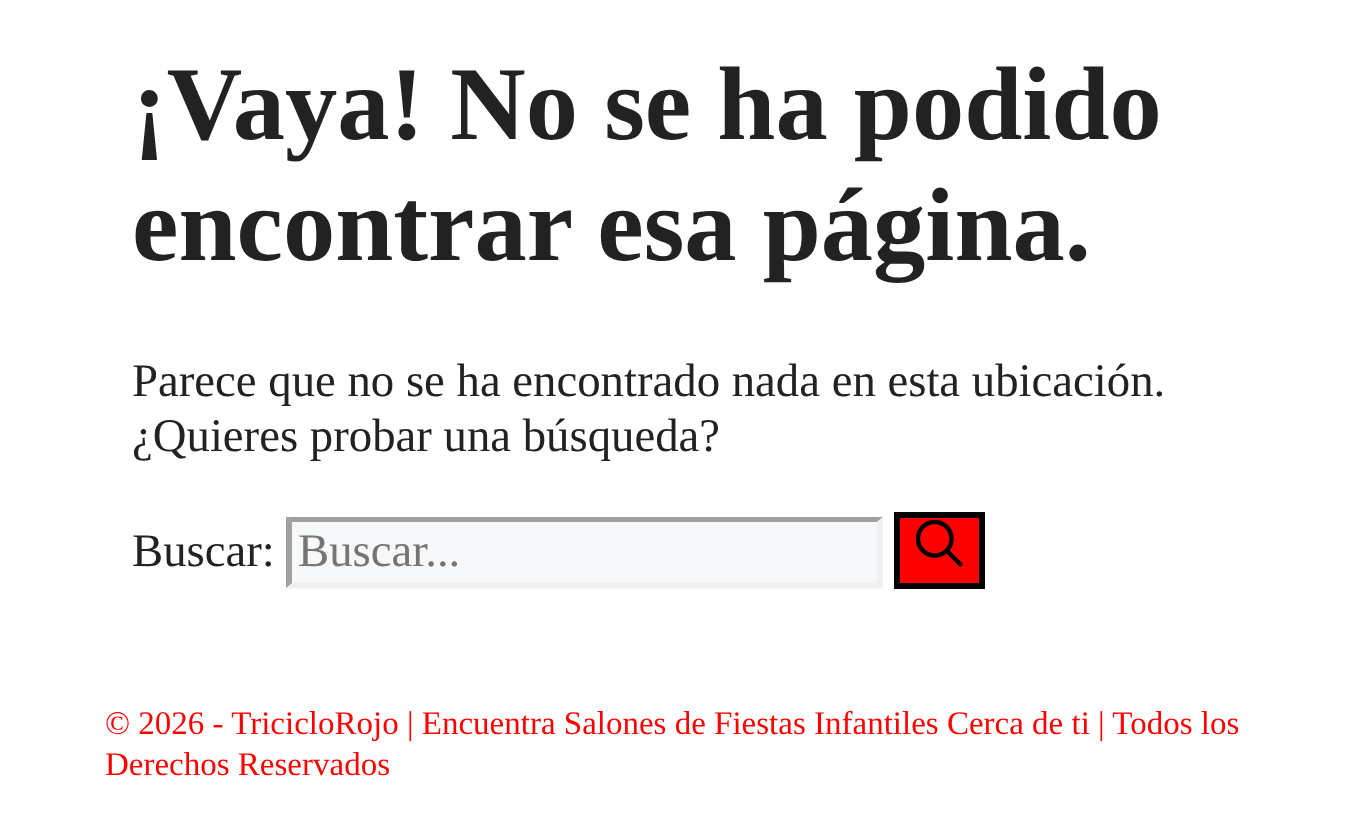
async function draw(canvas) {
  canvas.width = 1372
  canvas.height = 834
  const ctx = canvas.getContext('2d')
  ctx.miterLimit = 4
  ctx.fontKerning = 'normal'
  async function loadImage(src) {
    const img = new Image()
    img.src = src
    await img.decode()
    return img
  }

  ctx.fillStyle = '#fff'
  ctx.fillRect(0, 0, 1372, 834)
  ctx.font = 'bold 104.5px Liberation Serif'
  ctx.fillStyle = '#222'
  ctx.fillText('¡Vaya! No se ha podido', 132, 139)
  ctx.fillText('encontrar esa página.', 132, 260)
  ctx.font = '46.75px Liberation Serif'
  ctx.fillText('Parece que no se ha encontrado nada en esta ubicación.', 132, 396)
  ctx.fillText('¿Quieres probar una búsqueda?', 132, 451)
  ctx.fillText('Buscar:', 132, 566)
  ctx.fillStyle = '#f7f8f9'
  ctx.fillRect(286, 517, 597, 72)
  ctx.fillStyle = '#a0a0a0'
  ctx.beginPath()
  ctx.moveTo(286, 517)
  ctx.lineTo(883, 517)
  ctx.lineTo(877, 522)
  ctx.lineTo(292, 522)
  ctx.closePath()
  ctx.fill()
  ctx.fillStyle = '#f0f0f0'
  ctx.beginPath()
  ctx.moveTo(883, 517)
  ctx.lineTo(883, 588)
  ctx.lineTo(877, 583)
  ctx.lineTo(877, 522)
  ctx.closePath()
  ctx.fill()
  ctx.beginPath()
  ctx.moveTo(883, 588)
  ctx.lineTo(286, 588)
  ctx.lineTo(292, 583)
  ctx.lineTo(877, 583)
  ctx.closePath()
  ctx.fill()
  ctx.fillStyle = '#a0a0a0'
  ctx.beginPath()
  ctx.moveTo(286, 588)
  ctx.lineTo(286, 517)
  ctx.lineTo(292, 522)
  ctx.lineTo(292, 583)
  ctx.closePath()
  ctx.fill()
  ctx.fillStyle = '#757575'
  ctx.fillText('Buscar...', 298, 566)
  ctx.fillStyle = '#f00'
  ctx.beginPath()
  ctx.rect(897, 515, 85, 71)
  ctx.fill()
  ctx.strokeStyle = '#000'
  ctx.lineWidth = 6
  ctx.stroke()
  ctx.drawImage(await loadImage('image0.png'), 916, 520, 47, 47)
  ctx.font = '33px Liberation Serif'
  ctx.fillText('© 2026 - TricicloRojo | Encuentra Salones de Fiestas Infantiles Cerca de ti | Todos los', 105, 734)
  ctx.fillText('Derechos Reservados', 105, 775)
}

draw(document.querySelector('canvas'))
